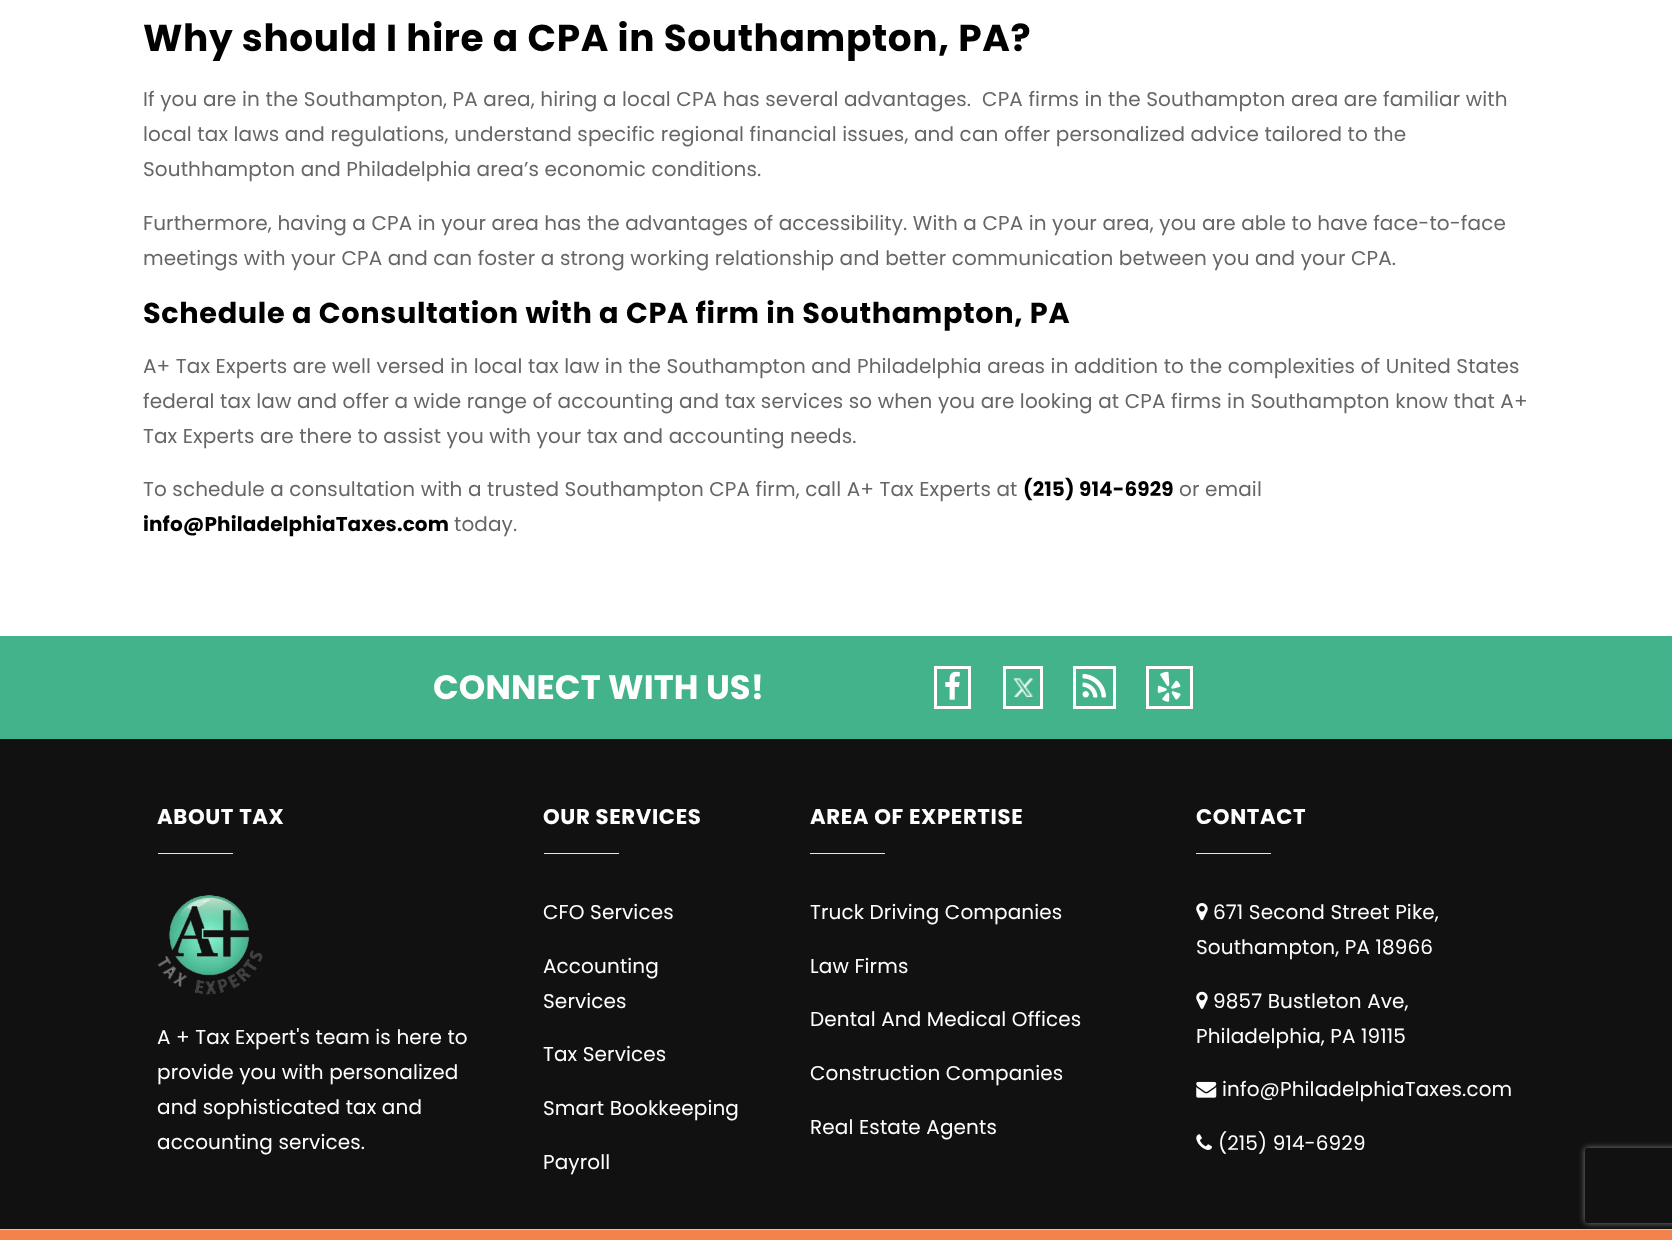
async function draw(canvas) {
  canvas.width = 1672
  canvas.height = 1240
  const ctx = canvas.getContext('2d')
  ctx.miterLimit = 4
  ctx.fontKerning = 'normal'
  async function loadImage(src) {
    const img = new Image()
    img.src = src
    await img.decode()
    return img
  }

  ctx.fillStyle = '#fff'
  ctx.fillRect(0, 0, 1672, 1240)
  ctx.letterSpacing = '0.62px'
  ctx.font = 'bold 37.5px Poppins'
  ctx.fillStyle = '#000'
  ctx.fillText('Why should I hire a CPA in Southampton, PA?', 143, 51)
  ctx.letterSpacing = '0.12px'
  ctx.font = '20px Poppins'
  ctx.fillStyle = '#666'
  ctx.fillText('If you are in the Southampton, PA area, hiring a local CPA has several advantages.  CPA firms in the Southampton area are familiar with', 143, 106)
  ctx.fillText('local tax laws and regulations, understand specific regional financial issues, and can offer personalized advice tailored to the', 143, 141)
  ctx.fillText('Southhampton and Philadelphia area’s economic conditions.', 143, 176)
  ctx.fillText('Furthermore, having a CPA in your area has the advantages of accessibility. With a CPA in your area, you are able to have face-to-face', 143, 230)
  ctx.fillText('meetings with your CPA and can foster a strong working relationship and better communication between you and your CPA.', 143, 265)
  ctx.letterSpacing = '0.62px'
  ctx.font = 'bold 28.75px Poppins'
  ctx.fillStyle = '#000'
  ctx.fillText('Schedule a Consultation with a CPA firm in Southampton, PA', 143, 323)
  ctx.letterSpacing = '0.12px'
  ctx.font = '20px Poppins'
  ctx.fillStyle = '#666'
  ctx.fillText('A+ Tax Experts are well versed in local tax law in the Southampton and Philadelphia areas in addition to the complexities of United States', 143, 373)
  ctx.fillText('federal tax law and offer a wide range of accounting and tax services so when you are looking at CPA firms in Southampton know that A+', 143, 408)
  ctx.fillText('Tax Experts are there to assist you with your tax and accounting needs.', 143, 443)
  ctx.fillText('To schedule a consultation with a trusted Southampton CPA firm, call A+ Tax Experts at', 143, 496)
  ctx.font = 'bold 20px Poppins'
  ctx.fillStyle = '#000'
  ctx.fillText('(215) 914-6929', 1023, 496)
  ctx.font = '20px Poppins'
  ctx.fillStyle = '#666'
  ctx.fillText('or email', 1179, 496)
  ctx.font = 'bold 20px Poppins'
  ctx.fillStyle = '#000'
  ctx.fillText('info@PhiladelphiaTaxes.com', 143, 531)
  ctx.font = '20px Poppins'
  ctx.fillStyle = '#666'
  ctx.fillText('today.', 454, 531)
  ctx.fillStyle = '#111'
  ctx.fillRect(0, 739, 1672, 490)
  ctx.fillStyle = '#42b38a'
  ctx.fillRect(0, 636, 1672, 103)
  ctx.font = 'bold 33.75px Poppins'
  ctx.fillStyle = '#fff'
  ctx.fillText('CONNECT WITH US!', 433, 699)
  ctx.strokeStyle = '#fff'
  ctx.lineWidth = 3
  ctx.strokeRect(935.5, 667.5, 34, 40)
  ctx.drawImage(await loadImage('image0.png'), 945, 671, 15, 29)
  ctx.strokeRect(1004.5, 667.5, 37, 40)
  ctx.drawImage(await loadImage('image1.png'), 1013, 678, 20, 19)
  ctx.strokeRect(1074.5, 667.5, 40, 40)
  ctx.drawImage(await loadImage('image2.png'), 1082, 673, 25, 25)
  ctx.strokeRect(1147.5, 667.5, 44, 40)
  ctx.drawImage(await loadImage('image3.png'), 1157, 671, 24, 31)
  ctx.letterSpacing = '0.62px'
  ctx.font = 'bold 21.25px Poppins'
  ctx.fillText('ABOUT TAX', 157, 824)
  ctx.fillStyle = '#e6e6e6'
  ctx.fillRect(158, 853, 75, 1)
  ctx.drawImage(await loadImage('image4.png'), 157, 895, 106, 100)
  ctx.letterSpacing = '0.12px'
  ctx.font = '20px Poppins'
  ctx.fillStyle = '#fff'
  ctx.fillText('A + Tax Expert\'s team is here to', 157, 1044)
  ctx.fillText('provide you with personalized', 157, 1079)
  ctx.fillText('and sophisticated tax and', 157, 1114)
  ctx.fillText('accounting services.', 157, 1149)
  ctx.letterSpacing = '0.62px'
  ctx.font = 'bold 21.25px Poppins'
  ctx.fillText('OUR SERVICES', 543, 824)
  ctx.fillStyle = '#e6e6e6'
  ctx.fillRect(544, 853, 75, 1)
  ctx.letterSpacing = '0.12px'
  ctx.font = '20px Poppins'
  ctx.fillStyle = '#fff'
  ctx.fillText('CFO Services', 543, 919)
  ctx.fillText('Accounting', 543, 973)
  ctx.fillText('Services', 543, 1008)
  ctx.fillText('Tax Services', 543, 1061)
  ctx.fillText('Smart Bookkeeping', 543, 1115)
  ctx.fillText('Payroll', 543, 1169)
  ctx.letterSpacing = '0.62px'
  ctx.font = 'bold 21.25px Poppins'
  ctx.fillText('AREA OF EXPERTISE', 810, 824)
  ctx.fillStyle = '#e6e6e6'
  ctx.fillRect(810, 853, 75, 1)
  ctx.letterSpacing = '0.12px'
  ctx.font = '20px Poppins'
  ctx.fillStyle = '#fff'
  ctx.fillText('Truck Driving Companies', 810, 919)
  ctx.fillText('Law Firms', 810, 973)
  ctx.fillText('Dental And Medical Offices', 810, 1026)
  ctx.fillText('Construction Companies', 810, 1080)
  ctx.fillText('Real Estate Agents', 810, 1134)
  ctx.letterSpacing = '0.62px'
  ctx.font = 'bold 21.25px Poppins'
  ctx.fillText('CONTACT', 1196, 824)
  ctx.fillStyle = '#e6e6e6'
  ctx.fillRect(1196, 853, 75, 1)
  ctx.drawImage(await loadImage('image5.png'), 1196, 903, 12, 18)
  ctx.letterSpacing = '0.12px'
  ctx.font = '20px Poppins'
  ctx.fillStyle = '#fff'
  ctx.fillText('671 Second Street Pike,', 1213, 919)
  ctx.fillText('Southampton, PA 18966', 1196, 954)
  ctx.drawImage(await loadImage('image6.png'), 1196, 991, 12, 18)
  ctx.fillText('9857 Bustleton Ave,', 1213, 1008)
  ctx.fillText('Philadelphia, PA 19115', 1196, 1043)
  ctx.drawImage(await loadImage('image7.png'), 1196, 1081, 21, 17)
  ctx.fillText('info@PhiladelphiaTaxes.com', 1222, 1096)
  ctx.drawImage(await loadImage('image8.png'), 1196, 1134, 16, 16)
  ctx.fillText('(215) 914-6929', 1218, 1150)
  ctx.fillStyle = '#f3824b'
  ctx.fillRect(0, 1230, 1672, 10)
  ctx.fillStyle = '#ccc'
  ctx.fillRect(0, 1229, 1672, 1)
  ctx.save()
  ctx.beginPath()
  ctx.moveTo(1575, 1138)
  ctx.lineTo(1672, 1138)
  ctx.lineTo(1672, 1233)
  ctx.lineTo(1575, 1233)
  ctx.closePath()
  ctx.moveTo(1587.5, 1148)
  ctx.lineTo(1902.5, 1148)
  ctx.bezierCurveTo(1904, 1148, 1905, 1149, 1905, 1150.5)
  ctx.lineTo(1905, 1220.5)
  ctx.bezierCurveTo(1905, 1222, 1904, 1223, 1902.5, 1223)
  ctx.lineTo(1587.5, 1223)
  ctx.bezierCurveTo(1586, 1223, 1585, 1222, 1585, 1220.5)
  ctx.lineTo(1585, 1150.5)
  ctx.bezierCurveTo(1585, 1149, 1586, 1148, 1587.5, 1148)
  ctx.closePath()
  ctx.clip('evenodd')
  ctx.fillStyle = '#808080'
  ctx.filter = 'blur(3px)'
  ctx.beginPath()
  ctx.roundRect(1585, 1148, 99, 75, 2.5)
  ctx.fill()
  ctx.filter = 'none'
  ctx.restore()
}

draw(document.querySelector('canvas'))
